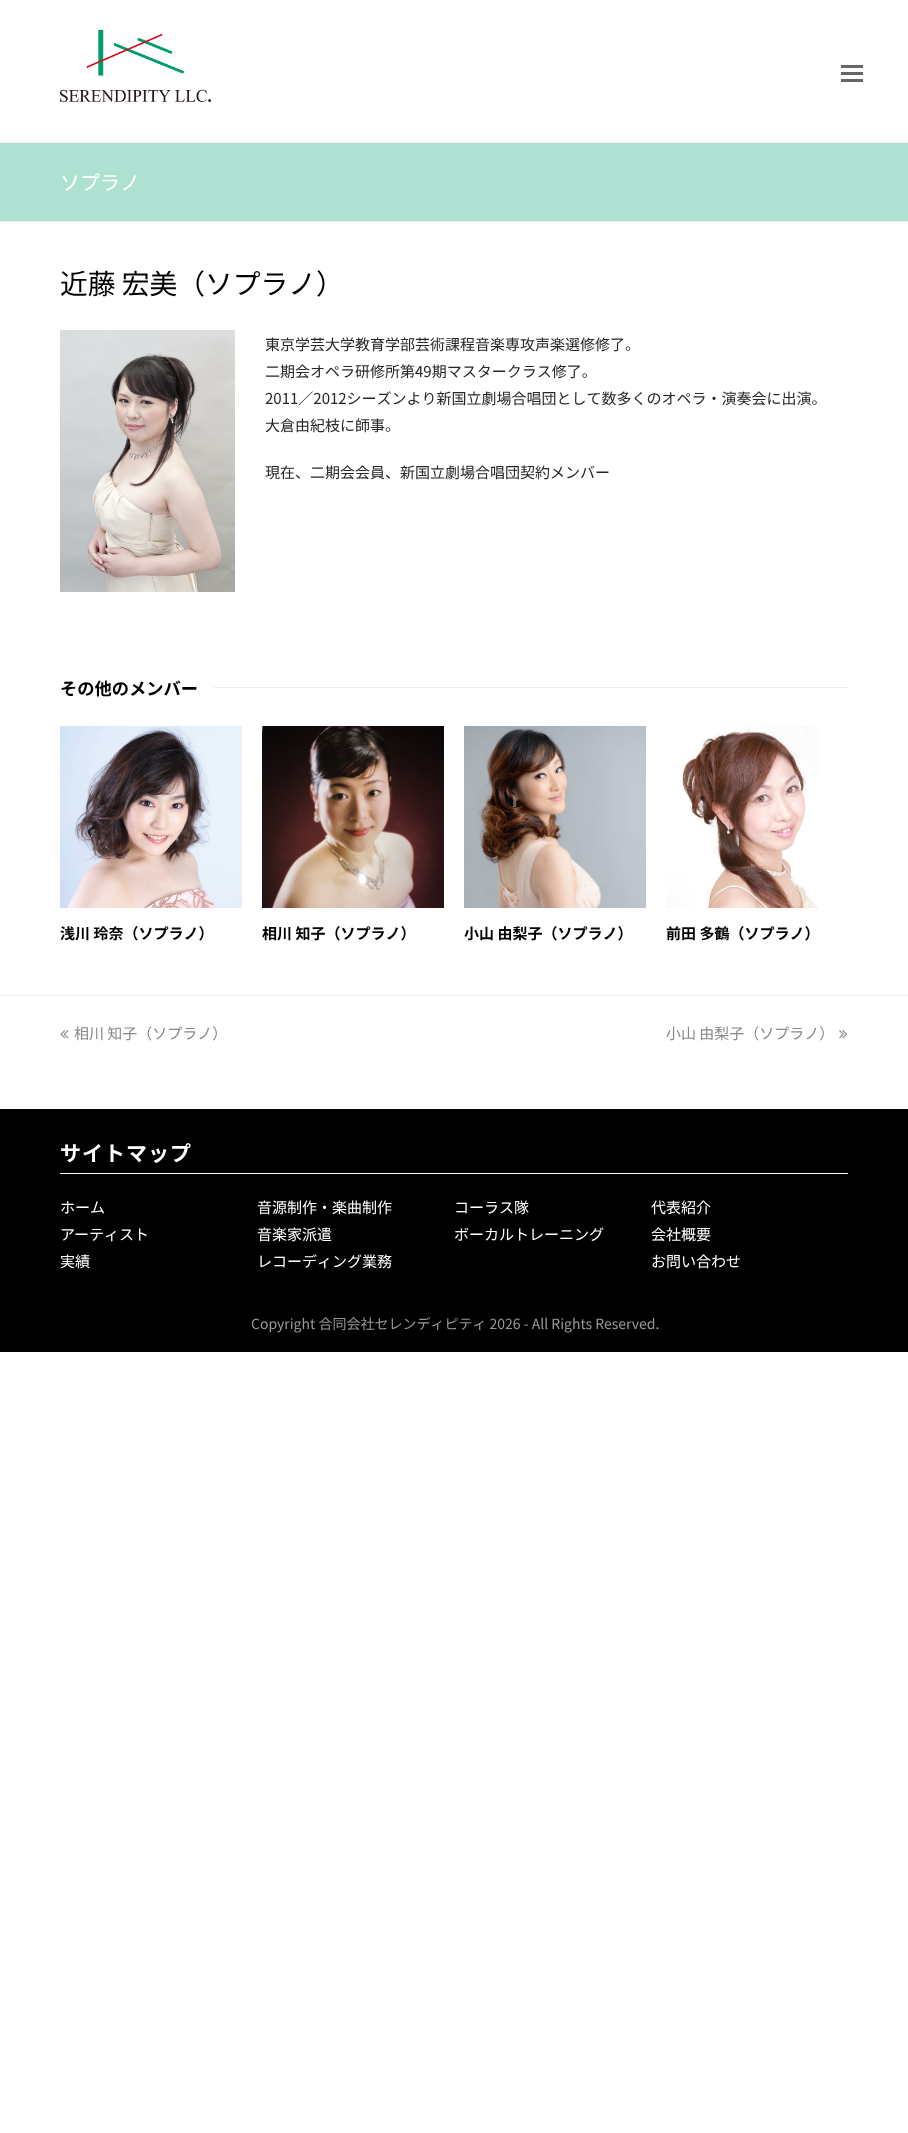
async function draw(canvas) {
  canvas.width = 908
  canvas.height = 2133
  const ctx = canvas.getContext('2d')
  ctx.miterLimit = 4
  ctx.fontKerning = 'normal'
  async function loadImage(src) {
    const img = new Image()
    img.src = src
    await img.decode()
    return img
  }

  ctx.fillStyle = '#fff'
  ctx.fillRect(0, 0, 908, 2133)
  ctx.drawImage(await loadImage('image0.png'), 60, 30, 151, 72)
  ctx.fillStyle = '#666'
  ctx.fillRect(841, 72, 22, 3)
  ctx.fillRect(841, 65, 22, 3)
  ctx.fillRect(841, 79, 22, 3)
  ctx.fillStyle = '#afe1d2'
  ctx.fillRect(0, 143, 908, 78)
  ctx.fillStyle = '#eee'
  ctx.fillRect(0, 142, 908, 1)
  ctx.fillRect(0, 221, 908, 1)
  ctx.font = '20px Noto Sans JP'
  ctx.fillStyle = '#fff'
  ctx.fillText('ソプラノ', 60, 190)
  ctx.font = '27.75px Noto Sans JP'
  ctx.fillStyle = '#000'
  ctx.fillText('近藤 宏美（ソプラノ）', 60, 294)
  ctx.drawImage(await loadImage('image1.png'), 60, 330, 175, 262)
  ctx.font = '15px Noto Sans JP'
  ctx.fillStyle = '#262626'
  ctx.fillText('東京学芸大学教育学部芸術課程音楽専攻声楽選修修了。', 265, 350)
  ctx.fillText('二期会オペラ研修所第49期マスタークラス修了。', 265, 377)
  ctx.fillText('2011／2012シーズンより新国立劇場合唱団として数多くのオペラ・演奏会に出演。', 265, 404)
  ctx.fillText('大倉由紀枝に師事。', 265, 431)
  ctx.fillText('現在、二期会会員、新国立劇場合唱団契約メンバー', 265, 478)
  ctx.font = 'bold 17.25px Noto Sans JP'
  ctx.fillStyle = '#000'
  ctx.fillText('その他のメンバー', 60, 695)
  ctx.fillStyle = '#eee'
  ctx.fillRect(214, 687, 634, 1)
  ctx.drawImage(await loadImage('image2.png'), 60, 726, 182, 182)
  ctx.font = 'bold 15px Noto Sans JP'
  ctx.fillStyle = '#000'
  ctx.fillText('浅川 玲奈（ソプラノ）', 60, 939)
  ctx.drawImage(await loadImage('image3.png'), 262, 726, 182, 182)
  ctx.fillText('相川 知子（ソプラノ）', 262, 939)
  ctx.drawImage(await loadImage('image4.png'), 464, 726, 182, 182)
  ctx.fillText('小山 由梨子（ソプラノ）', 464, 939)
  ctx.drawImage(await loadImage('image5.png'), 666, 726, 153, 182)
  ctx.fillText('前田 多鶴（ソプラノ）', 666, 939)
  ctx.fillStyle = '#eee'
  ctx.fillRect(0, 995, 908, 1)
  ctx.drawImage(await loadImage('image6.png'), 60, 1030, 9, 9)
  ctx.font = '15px Noto Sans JP'
  ctx.fillStyle = '#888'
  ctx.fillText('相川 知子（ソプラノ）', 74, 1039)
  ctx.fillText('小山 由梨子（ソプラノ）', 666, 1039)
  ctx.drawImage(await loadImage('image7.png'), 839, 1030, 9, 9)
  ctx.fillStyle = '#000'
  ctx.fillRect(0, 1109, 908, 243)
  ctx.letterSpacing = '1px'
  ctx.font = 'bold 21px Noto Sans JP'
  ctx.fillStyle = '#fff'
  ctx.fillText('サイトマップ', 60, 1161)
  ctx.fillRect(60, 1173, 788, 1)
  ctx.letterSpacing = '0px'
  ctx.font = '15px Noto Sans JP'
  ctx.fillText('ホーム', 60, 1213)
  ctx.fillText('アーティスト', 60, 1240)
  ctx.fillText('実績', 60, 1267)
  ctx.fillText('音源制作・楽曲制作', 257, 1213)
  ctx.fillText('音楽家派遣', 257, 1240)
  ctx.fillText('レコーディング業務', 257, 1267)
  ctx.fillText('コーラス隊', 454, 1213)
  ctx.fillText('ボーカルトレーニング', 454, 1240)
  ctx.fillText('代表紹介', 651, 1213)
  ctx.fillText('会社概要', 651, 1240)
  ctx.fillText('お問い合わせ', 651, 1267)
  ctx.font = '14px Noto Sans JP'
  ctx.fillStyle = '#999'
  ctx.fillText('Copyright 合同会社セレンディピティ 2026 - All Rights Reserved.', 251, 1329)
}

draw(document.querySelector('canvas'))
